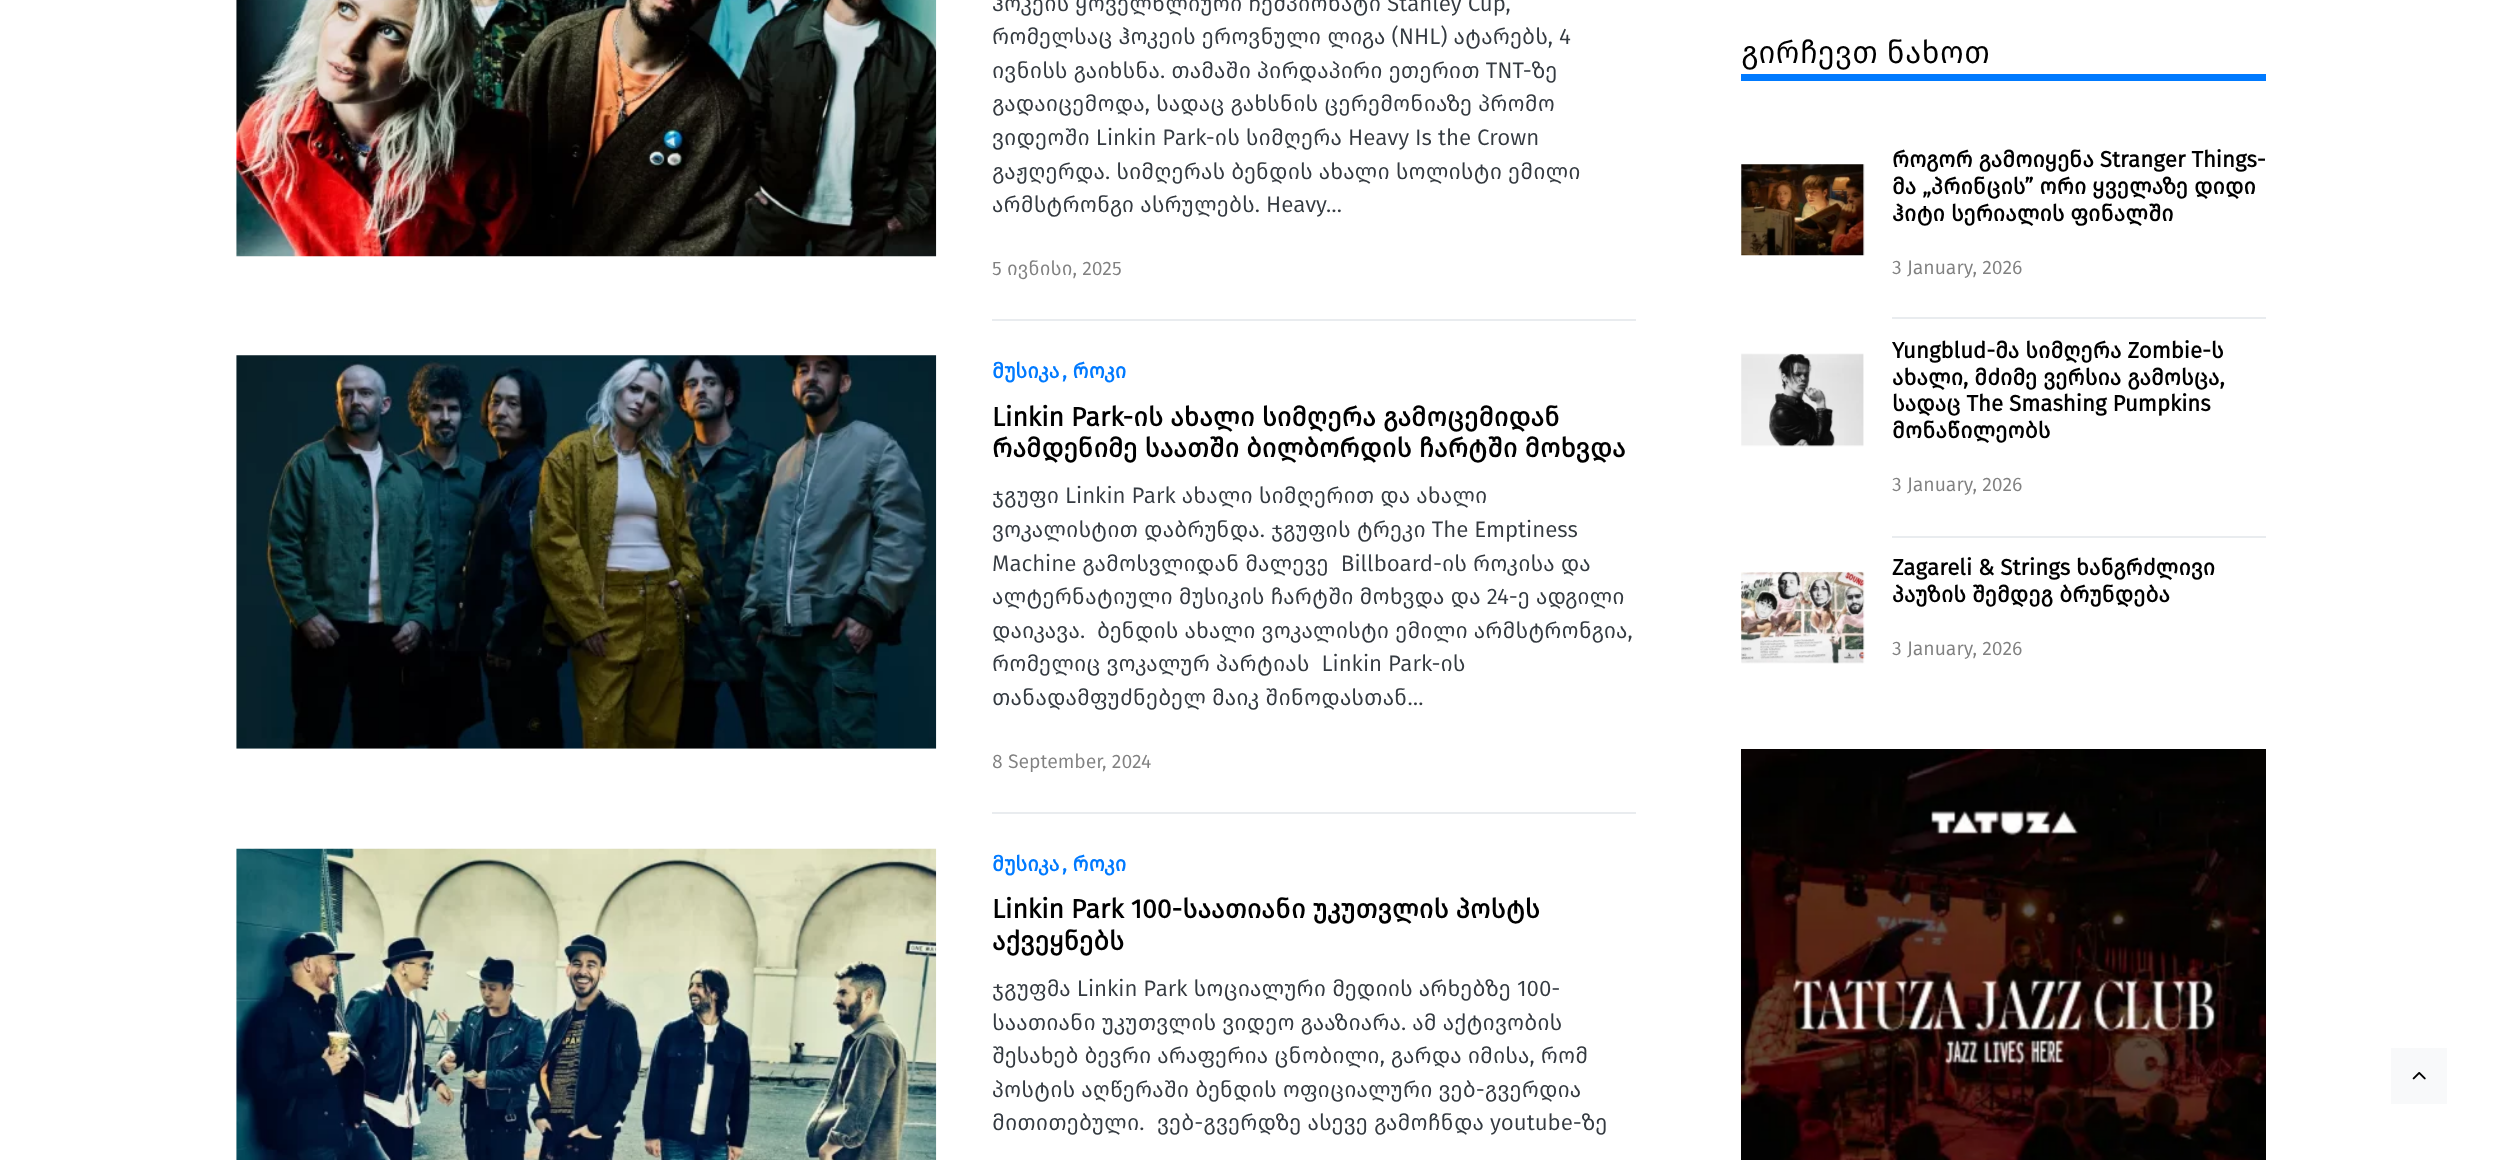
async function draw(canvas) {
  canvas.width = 2501
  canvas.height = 1160
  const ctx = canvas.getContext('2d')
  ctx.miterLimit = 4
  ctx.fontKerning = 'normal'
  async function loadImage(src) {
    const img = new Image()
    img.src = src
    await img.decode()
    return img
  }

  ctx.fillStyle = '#fff'
  ctx.fillRect(0, 0, 2501, 1160)
  ctx.drawImage(await loadImage('image0.png'), 236, 0, 701, 257)
  ctx.font = '22.4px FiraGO'
  ctx.fillStyle = '#343a40'
  ctx.fillText('ჰოკეის ყოველწლიური ჩემპიონატი Stanley Cup,', 992, 11)
  ctx.fillText('რომელსაც ჰოკეის ეროვნული ლიგა (NHL) ატარებს, 4', 992, 44)
  ctx.fillText('ივნისს გაიხსნა. თამაში პირდაპირი ეთერით TNT-ზე', 992, 78)
  ctx.fillText('გადაიცემოდა, სადაც გახსნის ცერემონიაზე პრომო', 992, 111)
  ctx.fillText('ვიდეოში Linkin Park-ის სიმღერა Heavy Is the Crown', 992, 145)
  ctx.fillText('გაჟღერდა. სიმღერას ბენდის ახალი სოლისტი ემილი', 992, 179)
  ctx.fillText('არმსტრონგი ასრულებს. Heavy…', 992, 212)
  ctx.font = '19.5px FiraGO'
  ctx.fillStyle = '#818181'
  ctx.fillText('5 ივნისი, 2025', 992, 275)
  ctx.fillStyle = '#e9ecef'
  ctx.fillRect(992, 319, 644, 2)
  ctx.drawImage(await loadImage('image1.png'), 236, 355, 701, 394)
  ctx.font = 'bold 21px FiraGO'
  ctx.fillStyle = '#007aff'
  ctx.fillText('მუსიკა', 992, 378)
  ctx.fillText(', როკი', 1062, 378)
  ctx.font = 'bold 26.6px FiraGO'
  ctx.fillStyle = '#000'
  ctx.fillText('Linkin Park-ის ახალი სიმღერა გამოცემიდან', 992, 426)
  ctx.fillText('რამდენიმე საათში ბილბორდის ჩარტში მოხვდა', 992, 457)
  ctx.font = '22.4px FiraGO'
  ctx.fillStyle = '#343a40'
  ctx.fillText('ჯგუფი Linkin Park ახალი სიმღერით და ახალი', 992, 503)
  ctx.fillText('ვოკალისტით დაბრუნდა. ჯგუფის ტრეკი The Emptiness', 992, 537)
  ctx.fillText('Machine გამოსვლიდან მალევე  Billboard-ის როკისა და', 992, 571)
  ctx.fillText('ალტერნატიული მუსიკის ჩარტში მოხვდა და 24-ე ადგილი', 992, 604)
  ctx.fillText('დაიკავა.', 992, 638)
  ctx.fillText('ბენდის ახალი ვოკალისტი ემილი არმსტრონგია,', 1097, 638)
  ctx.fillText('რომელიც ვოკალურ პარტიას  Linkin Park-ის', 992, 671)
  ctx.fillText('თანადამფუძნებელ მაიკ შინოდასთან…', 992, 705)
  ctx.font = '19.5px FiraGO'
  ctx.fillStyle = '#818181'
  ctx.fillText('8 September, 2024', 992, 768)
  ctx.fillStyle = '#e9ecef'
  ctx.fillRect(992, 812, 644, 2)
  ctx.drawImage(await loadImage('image2.png'), 236, 848, 701, 312)
  ctx.font = 'bold 21px FiraGO'
  ctx.fillStyle = '#007aff'
  ctx.fillText('მუსიკა', 992, 871)
  ctx.fillText(', როკი', 1062, 871)
  ctx.font = 'bold 26.6px FiraGO'
  ctx.fillStyle = '#000'
  ctx.fillText('Linkin Park 100-საათიანი უკუთვლის პოსტს', 992, 918)
  ctx.fillText('აქვეყნებს', 992, 950)
  ctx.font = '22.4px FiraGO'
  ctx.fillStyle = '#343a40'
  ctx.fillText('ჯგუფმა Linkin Park სოციალური მედიის არხებზე 100-', 992, 996)
  ctx.fillText('საათიანი უკუთვლის ვიდეო გააზიარა. ამ აქტივობის', 992, 1030)
  ctx.fillText('შესახებ ბევრი არაფერია ცნობილი, გარდა იმისა, რომ', 992, 1063)
  ctx.fillText('პოსტის აღწერაში ბენდის ოფიციალური ვებ-გვერდია', 992, 1097)
  ctx.fillText('მითითებული.', 992, 1130)
  ctx.fillText('ვებ-გვერდზე ასევე გამოჩნდა youtube-ზე', 1157, 1130)
  ctx.fillStyle = '#007aff'
  ctx.fillRect(1741, 74, 525, 7)
  ctx.font = '31.5px FiraGO'
  ctx.fillStyle = '#000'
  ctx.fillText('გირჩევთ ნახოთ', 1741, 63)
  ctx.drawImage(await loadImage('image3.png'), 1741, 164, 124, 92)
  ctx.font = 'bold 22.4px FiraGO'
  ctx.fillText('როგორ გამოიყენა Stranger Things-', 1892, 167)
  ctx.fillText('მა „პრინცის” ორი ყველაზე დიდი', 1892, 194)
  ctx.fillText('ჰიტი სერიალის ფინალში', 1892, 221)
  ctx.font = '19.5px FiraGO'
  ctx.fillStyle = '#818181'
  ctx.fillText('3 January, 2026', 1892, 274)
  ctx.fillStyle = '#e9ecef'
  ctx.fillRect(1892, 317, 374, 2)
  ctx.drawImage(await loadImage('image4.png'), 1741, 353, 123, 94)
  ctx.font = 'bold 22.4px FiraGO'
  ctx.fillStyle = '#000'
  ctx.fillText('Yungblud-მა სიმღერა Zombie-ს', 1892, 358)
  ctx.fillText('ახალი, მძიმე ვერსია გამოსცა,', 1892, 385)
  ctx.fillText('სადაც The Smashing Pumpkins', 1892, 411)
  ctx.fillText('მონაწილეობს', 1892, 438)
  ctx.font = '19.5px FiraGO'
  ctx.fillStyle = '#818181'
  ctx.fillText('3 January, 2026', 1892, 491)
  ctx.fillStyle = '#e9ecef'
  ctx.fillRect(1892, 536, 374, 2)
  ctx.drawImage(await loadImage('image5.png'), 1741, 571, 124, 93)
  ctx.font = 'bold 22.4px FiraGO'
  ctx.fillStyle = '#000'
  ctx.fillText('Zagareli & Strings ხანგრძლივი', 1892, 575)
  ctx.fillText('პაუზის შემდეგ ბრუნდება', 1892, 602)
  ctx.font = '19.5px FiraGO'
  ctx.fillStyle = '#818181'
  ctx.fillText('3 January, 2026', 1892, 655)
  ctx.drawImage(await loadImage('image6.png'), 1741, 749, 525, 411)
  ctx.fillStyle = '#f8f9fa'
  ctx.fillRect(2391, 1048, 56, 56)
  ctx.drawImage(await loadImage('image7.png'), 2412, 1072, 14, 8)
}

draw(document.querySelector('canvas'))
